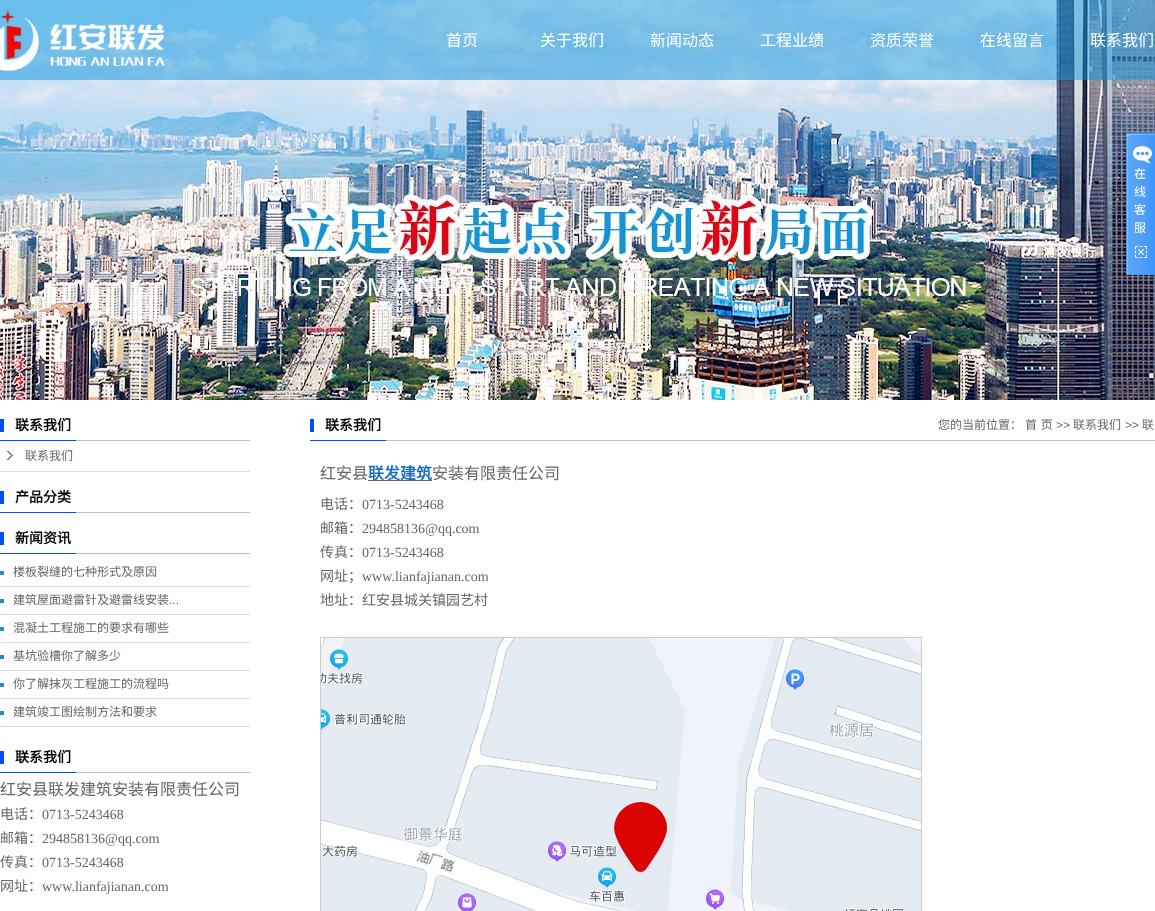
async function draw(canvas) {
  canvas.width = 1155
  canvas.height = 911
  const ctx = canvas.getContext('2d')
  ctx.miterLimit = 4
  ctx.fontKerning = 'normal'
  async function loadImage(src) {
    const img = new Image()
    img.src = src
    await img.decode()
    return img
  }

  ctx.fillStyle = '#fff'
  ctx.fillRect(0, 0, 1155, 911)
  ctx.drawImage(await loadImage('image0.png'), 0, 0, 1155, 400)
  ctx.fillStyle = '#1296db80'
  ctx.fillRect(0, 0, 1155, 80)
  ctx.drawImage(await loadImage('image1.png'), 0, 10, 165, 61)
  ctx.font = '16px Noto Sans CJK SC'
  ctx.fillStyle = '#fff'
  ctx.fillText('首页', 446, 46)
  ctx.fillText('关于我们', 540, 46)
  ctx.fillText('新闻动态', 650, 46)
  ctx.fillText('工程业绩', 760, 46)
  ctx.fillText('资质荣誉', 870, 46)
  ctx.fillText('在线留言', 980, 46)
  ctx.fillText('联系我们', 1090, 46)
  ctx.drawImage(await loadImage('image2.png'), 1126, 133, 29, 142)
  ctx.font = '12px Noto Sans CJK SC'
  ctx.fillText('在', 1134, 178)
  ctx.fillText('线', 1134, 196)
  ctx.fillText('客', 1134, 214)
  ctx.fillText('服', 1134, 232)
  ctx.drawImage(await loadImage('image3.png'), 1135, 246, 12, 12)
  ctx.drawImage(await loadImage('image4.png'), 0, 419, 250, 22)
  ctx.font = 'bold 14px Noto Sans CJK SC'
  ctx.fillStyle = '#000'
  ctx.fillText('联系我们', 15, 430)
  ctx.drawImage(await loadImage('image5.png'), 7, 451, 6, 9)
  ctx.fillStyle = '#ddd'
  ctx.fillRect(0, 471, 250, 1)
  ctx.font = '12px Noto Sans CJK SC'
  ctx.fillStyle = '#666'
  ctx.fillText('联系我们', 25, 460)
  ctx.drawImage(await loadImage('image4.png'), 0, 491, 250, 22)
  ctx.font = 'bold 14px Noto Sans CJK SC'
  ctx.fillStyle = '#000'
  ctx.fillText('产品分类', 15, 502)
  ctx.drawImage(await loadImage('image4.png'), 0, 532, 250, 22)
  ctx.fillText('新闻资讯', 15, 543)
  ctx.drawImage(await loadImage('image6.png'), 0, 571, 4, 4)
  ctx.fillStyle = '#ddd'
  ctx.fillRect(0, 586, 250, 1)
  ctx.font = '12px Noto Sans CJK SC'
  ctx.fillStyle = '#666'
  ctx.fillText('楼板裂缝的七种形式及原因', 13, 576)
  ctx.drawImage(await loadImage('image6.png'), 0, 599, 4, 4)
  ctx.fillStyle = '#ddd'
  ctx.fillRect(0, 614, 250, 1)
  ctx.fillStyle = '#666'
  ctx.fillText('建筑屋面避雷针及避雷线安装', 13, 604)
  ctx.font = '12px Liberation Sans'
  ctx.fillText('...', 169, 604)
  ctx.drawImage(await loadImage('image6.png'), 0, 627, 4, 4)
  ctx.fillStyle = '#ddd'
  ctx.fillRect(0, 642, 250, 1)
  ctx.font = '12px Noto Sans CJK SC'
  ctx.fillStyle = '#666'
  ctx.fillText('混凝土工程施工的要求有哪些', 13, 632)
  ctx.drawImage(await loadImage('image6.png'), 0, 655, 4, 4)
  ctx.fillStyle = '#ddd'
  ctx.fillRect(0, 670, 250, 1)
  ctx.fillStyle = '#666'
  ctx.fillText('基坑验槽你了解多少', 13, 660)
  ctx.drawImage(await loadImage('image6.png'), 0, 683, 4, 4)
  ctx.fillStyle = '#ddd'
  ctx.fillRect(0, 698, 250, 1)
  ctx.fillStyle = '#666'
  ctx.fillText('你了解抹灰工程施工的流程吗', 13, 688)
  ctx.drawImage(await loadImage('image6.png'), 0, 711, 4, 4)
  ctx.fillStyle = '#ddd'
  ctx.fillRect(0, 726, 250, 1)
  ctx.fillStyle = '#666'
  ctx.fillText('建筑竣工图绘制方法和要求', 13, 716)
  ctx.drawImage(await loadImage('image4.png'), 0, 751, 250, 22)
  ctx.font = 'bold 14px Noto Sans CJK SC'
  ctx.fillStyle = '#000'
  ctx.fillText('联系我们', 15, 762)
  ctx.font = '16px Noto Sans CJK SC'
  ctx.fillStyle = '#666'
  ctx.fillText('红安县联发建筑安装有限责任公司', 0, 795)
  ctx.font = '14px Noto Sans CJK SC'
  ctx.fillText('电话：', 0, 819)
  ctx.font = '14px Liberation Serif'
  ctx.fillText('0713-5243468', 42, 819)
  ctx.font = '14px Noto Sans CJK SC'
  ctx.fillText('邮箱：', 0, 843)
  ctx.font = '14px Liberation Serif'
  ctx.fillText('294858136@qq.com', 42, 843)
  ctx.font = '14px Noto Sans CJK SC'
  ctx.fillText('传真：', 0, 867)
  ctx.font = '14px Liberation Serif'
  ctx.fillText('0713-5243468', 42, 867)
  ctx.font = '14px Noto Sans CJK SC'
  ctx.fillText('网址：', 0, 891)
  ctx.font = '14px Liberation Serif'
  ctx.fillText('www.lianfajianan.com', 42, 891)
  ctx.drawImage(await loadImage('image7.png'), 310, 419, 845, 22)
  ctx.font = 'bold 14px Noto Sans CJK SC'
  ctx.fillStyle = '#000'
  ctx.fillText('联系我们', 325, 430)
  ctx.font = '12px Noto Sans CJK SC'
  ctx.fillStyle = '#666'
  ctx.fillText('您的当前位置：', 938, 429)
  ctx.wordSpacing = '1px'
  ctx.fillText('首 页', 1025, 429)
  ctx.wordSpacing = '0px'
  ctx.font = '12px Liberation Sans'
  ctx.fillText('>>', 1056, 429)
  ctx.font = '12px Noto Sans CJK SC'
  ctx.fillText('联系我们', 1073, 429)
  ctx.font = '12px Liberation Sans'
  ctx.fillText('>>', 1125, 429)
  ctx.font = '12px Noto Sans CJK SC'
  ctx.fillText('联', 1142, 429)
  ctx.font = '16px Noto Sans CJK SC'
  ctx.fillText('红安县', 320, 479)
  ctx.fillRect(368, 480, 64, 1)
  ctx.font = 'bold 16px Noto Sans CJK SC'
  ctx.fillStyle = '#136ec2'
  ctx.fillText('联发建筑', 368, 479)
  ctx.font = '16px Noto Sans CJK SC'
  ctx.fillStyle = '#666'
  ctx.fillText('安装有限责任公司', 432, 479)
  ctx.font = '14px Noto Sans CJK SC'
  ctx.fillText('电话：', 320, 509)
  ctx.font = '14px Liberation Serif'
  ctx.fillText('0713-5243468', 362, 509)
  ctx.font = '14px Noto Sans CJK SC'
  ctx.fillText('邮箱：', 320, 533)
  ctx.font = '14px Liberation Serif'
  ctx.fillText('294858136@qq.com', 362, 533)
  ctx.font = '14px Noto Sans CJK SC'
  ctx.fillText('传真：', 320, 557)
  ctx.font = '14px Liberation Serif'
  ctx.fillText('0713-5243468', 362, 557)
  ctx.font = '14px Noto Sans CJK SC'
  ctx.fillText('网址；', 320, 581)
  ctx.font = '14px Liberation Serif'
  ctx.fillText('www.lianfajianan.com', 362, 581)
  ctx.font = '14px Noto Sans CJK SC'
  ctx.fillText('地址：红安县城关镇园艺村', 320, 605)
  ctx.strokeStyle = '#ccc'
  ctx.strokeRect(320.5, 637.5, 601, 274)
  ctx.drawImage(await loadImage('image8.png'), 321, 638, 600, 273)
}

draw(document.querySelector('canvas'))
